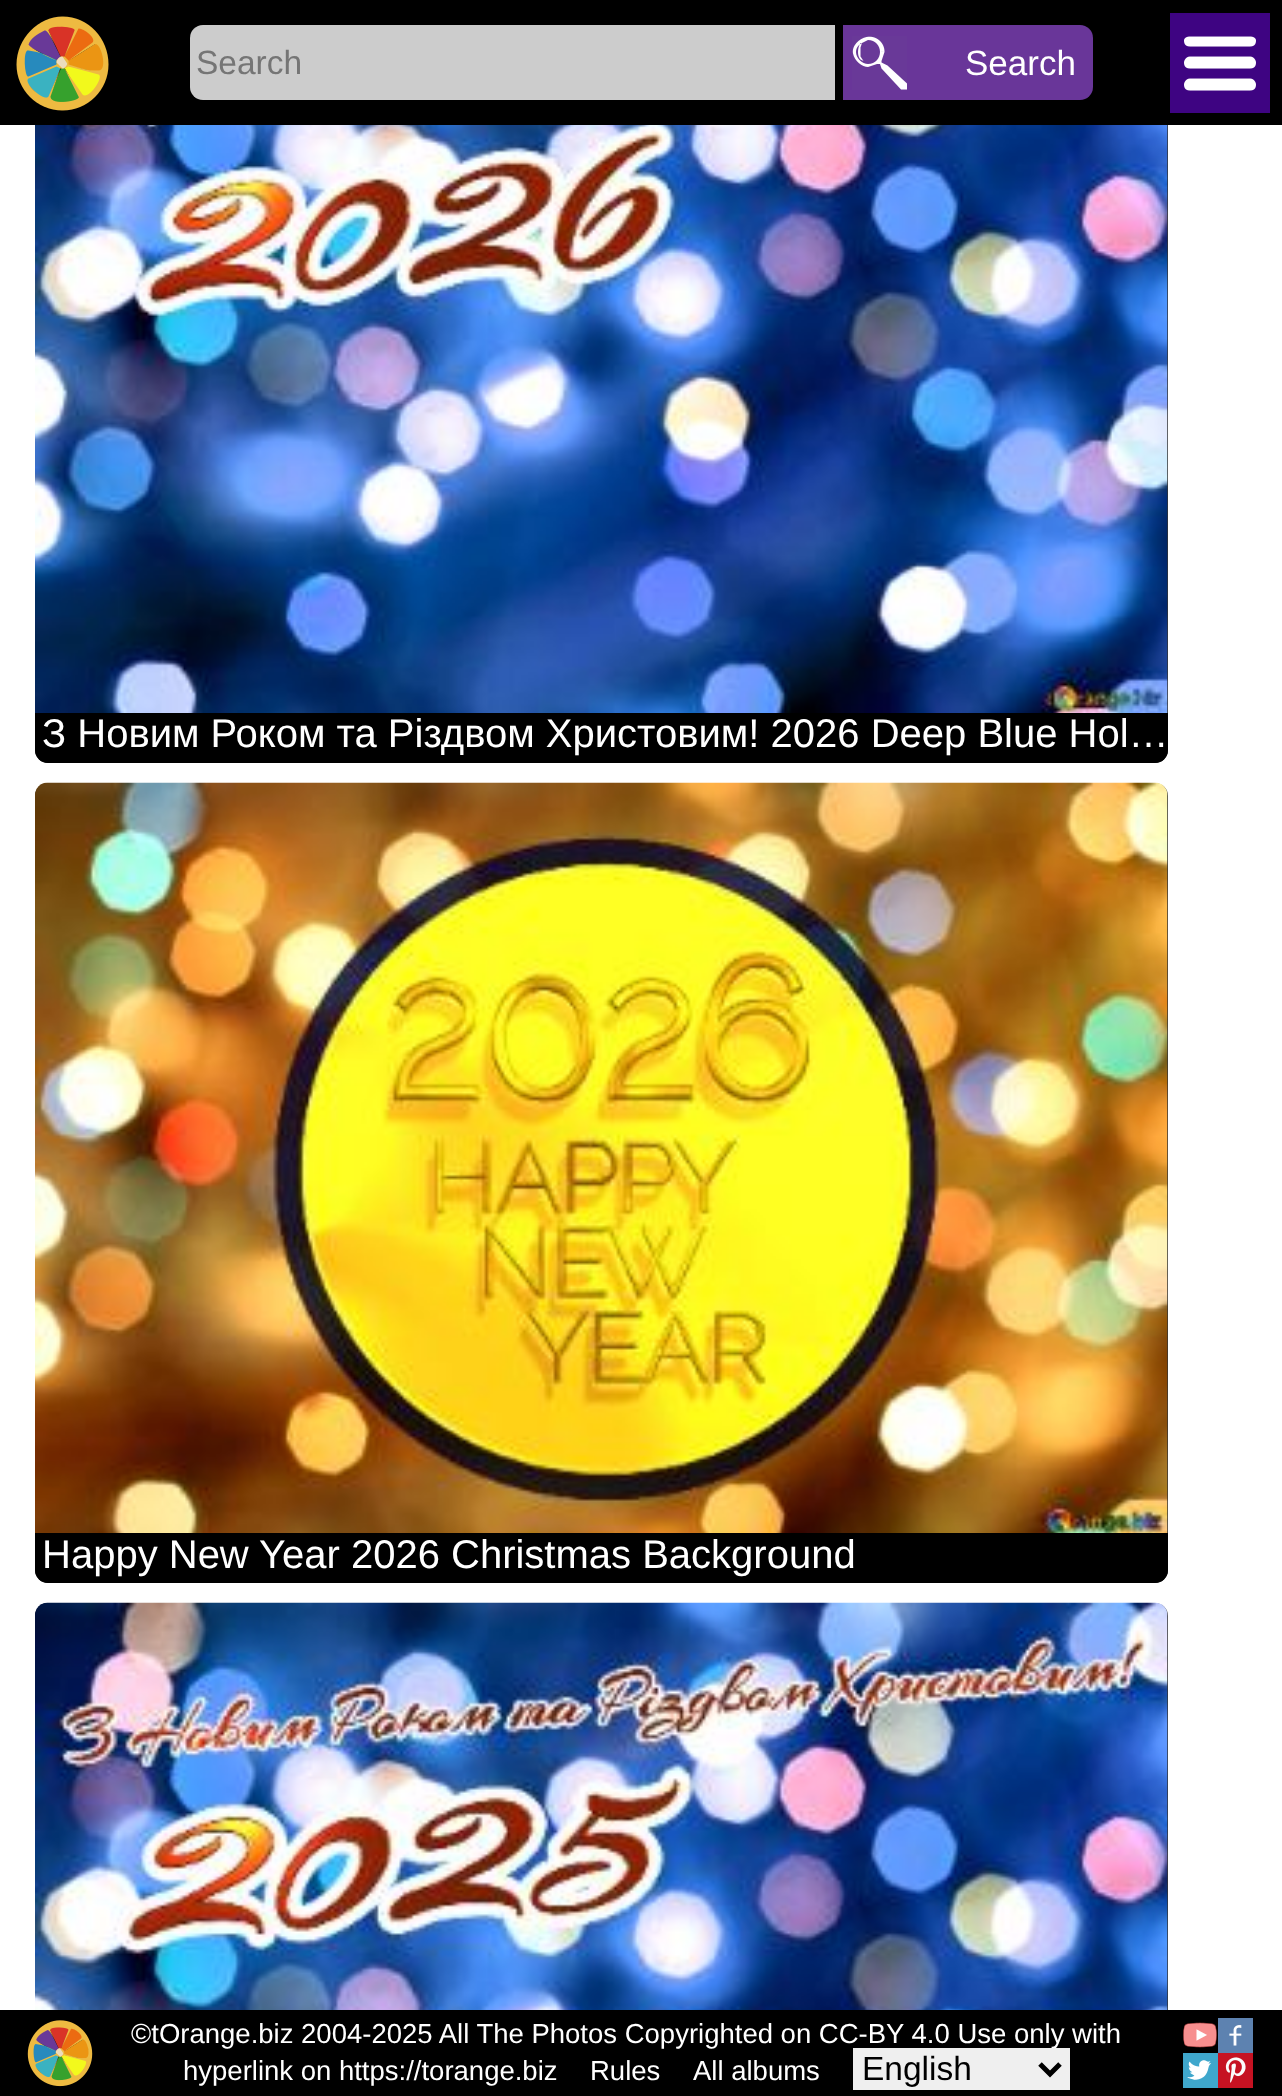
async function draw(canvas) {
  canvas.width = 1282
  canvas.height = 2096
  const ctx = canvas.getContext('2d')
  ctx.miterLimit = 4
  ctx.fontKerning = 'normal'
  async function loadImage(src) {
    const img = new Image()
    img.src = src
    await img.decode()
    return img
  }

  ctx.fillStyle = '#fff'
  ctx.fillRect(0, 0, 1282, 2096)
  ctx.fillStyle = '#333'
  ctx.beginPath()
  ctx.roundRect(35, -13, 1133, 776, 13)
  ctx.fill()
  ctx.fillStyle = '#000'
  ctx.fillRect(0, 0, 1282, 125)
  ctx.drawImage(await loadImage('image0.png'), 16, 16, 93, 95)
  ctx.fillStyle = '#ccc'
  ctx.beginPath()
  ctx.roundRect(190, 25, 645, 75, [13, 0, 0, 13])
  ctx.fill()
  ctx.font = '33.5px Liberation Sans'
  ctx.fillStyle = '#757575'
  ctx.fillText('Search', 196, 74)
  ctx.fillStyle = '#693699'
  ctx.beginPath()
  ctx.roundRect(843, 25, 250, 75, [0, 13, 13, 0])
  ctx.fill()
  ctx.drawImage(await loadImage('image1.png'), 852, 36, 55, 54)
  ctx.font = '35px Liberation Sans'
  ctx.fillStyle = '#fff'
  ctx.fillText('Search', 965, 75)
  ctx.drawImage(await loadImage('image2.png'), 1170, 13, 100, 100)
  ctx.drawImage(await loadImage('image3.png'), 35, 125, 1133, 588)
  ctx.fillStyle = '#000'
  ctx.beginPath()
  ctx.roundRect(35, 713, 1133, 50, [0, 0, 13, 13])
  ctx.fill()
  ctx.font = '40px Liberation Sans'
  ctx.fillStyle = '#fff'
  ctx.fillText('З Новим Роком та Різдвом Христовим! 2026 Deep Blue Hol…', 42, 747)
  ctx.fillStyle = '#333'
  ctx.beginPath()
  ctx.roundRect(35, 783, 1133, 800, 13)
  ctx.fill()
  ctx.drawImage(await loadImage('image4.png'), 35, 782, 1133, 751)
  ctx.fillStyle = '#000'
  ctx.beginPath()
  ctx.roundRect(35, 1533, 1133, 50, [0, 0, 13, 13])
  ctx.fill()
  ctx.fillStyle = '#fff'
  ctx.fillText('Happy New', 42, 1568)
  ctx.fillText('Year 2026 Christmas Background', 259, 1568)
  ctx.fillStyle = '#333'
  ctx.beginPath()
  ctx.roundRect(35, 1603, 1133, 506, 13)
  ctx.fill()
  ctx.drawImage(await loadImage('image5.png'), 35, 1602, 1133, 408)
  ctx.fillStyle = '#000'
  ctx.fillRect(0, 2010, 1282, 86)
  ctx.drawImage(await loadImage('image6.png'), 27, 2020, 66, 67)
  ctx.font = '27.5px Liberation Sans'
  ctx.fillStyle = '#fff'
  ctx.fillText('©tOrange.biz 2004-2025 All The Photos Copyrighted on CC-BY 4.0 Use only with', 131, 2043)
  ctx.fillText('hyperlink on https://torange.biz', 183, 2080)
  ctx.fillText('Rules', 590, 2080)
  ctx.fillText('All albums', 693, 2080)
  ctx.fillStyle = '#efefef'
  ctx.fillRect(853, 2048, 217, 42)
  ctx.beginPath()
  ctx.moveTo(1040, 2064)
  ctx.lineTo(1050, 2074)
  ctx.lineTo(1060, 2064)
  ctx.strokeStyle = '#000'
  ctx.lineWidth = 5
  ctx.stroke()
  ctx.font = '33.5px Liberation Sans'
  ctx.fillStyle = '#000'
  ctx.fillText('English', 862, 2080)
  ctx.drawImage(await loadImage('image7.png'), 1183, 2022, 34, 26)
  ctx.drawImage(await loadImage('image8.png'), 1218, 2018, 35, 35)
  ctx.drawImage(await loadImage('image9.png'), 1183, 2053, 35, 35)
  ctx.drawImage(await loadImage('image10.png'), 1218, 2053, 35, 35)
}

draw(document.querySelector('canvas'))
